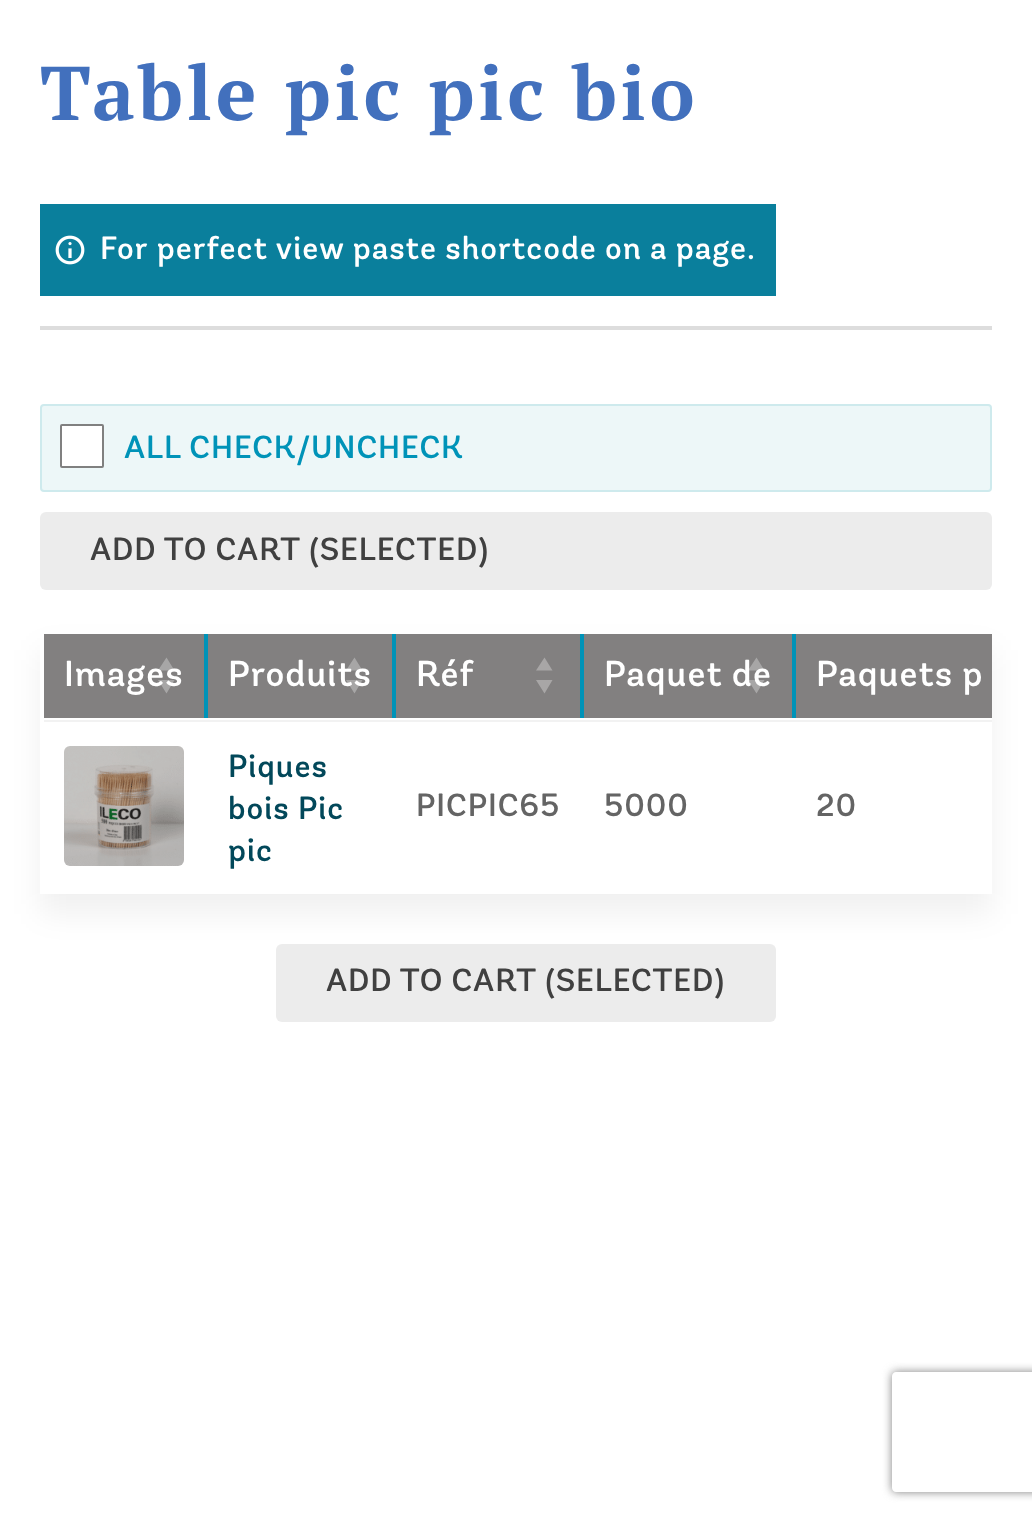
async function draw(canvas) {
  canvas.width = 1032
  canvas.height = 1520
  const ctx = canvas.getContext('2d')
  ctx.miterLimit = 4
  ctx.fontKerning = 'normal'
  async function loadImage(src) {
    const img = new Image()
    img.src = src
    await img.decode()
    return img
  }

  ctx.fillStyle = '#fff'
  ctx.fillRect(0, 0, 1032, 1520)
  ctx.fillStyle = '#ddd'
  ctx.fillRect(40, 326, 952, 4)
  ctx.letterSpacing = '3.75px'
  ctx.font = 'bold 76px PT Serif'
  ctx.fillStyle = '#4270bd'
  ctx.fillText('Table pic pic bio', 40, 120)
  ctx.fillStyle = '#0a7f9c'
  ctx.fillRect(40, 204, 736, 92)
  ctx.drawImage(await loadImage('image0.png'), 55, 235, 30, 30)
  ctx.letterSpacing = '0.95px'
  ctx.font = '500 32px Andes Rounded'
  ctx.fillStyle = '#fff'
  ctx.fillText('For perfect view paste shortcode on a page.', 100, 259)
  ctx.fillStyle = '#edf7f8'
  ctx.beginPath()
  ctx.roundRect(41, 405, 950, 86, 3)
  ctx.fill()
  ctx.strokeStyle = '#ceeaed'
  ctx.lineWidth = 2
  ctx.stroke()
  ctx.fillStyle = '#fff'
  ctx.beginPath()
  ctx.roundRect(61, 425, 42, 42, 1)
  ctx.fill()
  ctx.strokeStyle = '#808080'
  ctx.stroke()
  ctx.fillStyle = '#0093b8'
  ctx.fillText('ALL CHECK/UNCHECK', 124, 458)
  ctx.fillStyle = '#ececec'
  ctx.beginPath()
  ctx.roundRect(40, 512, 952, 78, 6)
  ctx.fill()
  ctx.fillStyle = '#404040'
  ctx.fillText('ADD TO CART (SELECTED)', 90, 560)
  ctx.save()
  ctx.beginPath()
  ctx.moveTo(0, 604)
  ctx.lineTo(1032, 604)
  ctx.lineTo(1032, 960)
  ctx.lineTo(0, 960)
  ctx.closePath()
  ctx.moveTo(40, 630)
  ctx.lineTo(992, 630)
  ctx.lineTo(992, 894)
  ctx.lineTo(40, 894)
  ctx.closePath()
  ctx.clip('evenodd')
  ctx.fillStyle = '#0000000f'
  ctx.filter = 'blur(15px)'
  ctx.beginPath()
  ctx.rect(40, 650, 952, 264)
  ctx.fill()
  ctx.filter = 'none'
  ctx.restore()
  ctx.fillStyle = '#0093b8'
  ctx.fillRect(204, 634, 592, 84)
  ctx.fillStyle = '#828080'
  ctx.fillRect(44, 634, 160, 84)
  ctx.font = '500 36px Andes Rounded'
  ctx.fillStyle = '#fff'
  ctx.fillText('Images', 64, 686)
  ctx.fillStyle = '#ffffff4d'
  ctx.beginPath()
  ctx.moveTo(166.5, 657.5)
  ctx.lineTo(174.5, 670.5)
  ctx.lineTo(158, 670.5)
  ctx.closePath()
  ctx.moveTo(166.5, 693.5)
  ctx.lineTo(158, 680)
  ctx.lineTo(174.5, 680)
  ctx.closePath()
  ctx.fill()
  ctx.fillStyle = '#828080'
  ctx.fillRect(208, 634, 184, 84)
  ctx.fillStyle = '#fff'
  ctx.fillText('Produits', 228, 686)
  ctx.fillStyle = '#ffffff4d'
  ctx.beginPath()
  ctx.moveTo(354.5, 657.5)
  ctx.lineTo(362.5, 670.5)
  ctx.lineTo(346, 670.5)
  ctx.closePath()
  ctx.moveTo(354.5, 693.5)
  ctx.lineTo(346, 680)
  ctx.lineTo(362.5, 680)
  ctx.closePath()
  ctx.fill()
  ctx.fillStyle = '#828080'
  ctx.fillRect(396, 634, 184, 84)
  ctx.fillStyle = '#fff'
  ctx.fillText('Réf', 416, 686)
  ctx.fillStyle = '#a8a6a6'
  ctx.beginPath()
  ctx.moveTo(544.5, 657.5)
  ctx.lineTo(552.5, 670.5)
  ctx.lineTo(536, 670.5)
  ctx.closePath()
  ctx.moveTo(544.5, 693.5)
  ctx.lineTo(536, 680)
  ctx.lineTo(552.5, 680)
  ctx.closePath()
  ctx.fill()
  ctx.fillStyle = '#828080'
  ctx.fillRect(584, 634, 208, 84)
  ctx.fillStyle = '#fff'
  ctx.fillText('Paquet de', 604, 686)
  ctx.fillStyle = '#ffffff4d'
  ctx.beginPath()
  ctx.moveTo(756.5, 657.5)
  ctx.lineTo(764.5, 670.5)
  ctx.lineTo(748, 670.5)
  ctx.closePath()
  ctx.moveTo(756.5, 693.5)
  ctx.lineTo(748, 680)
  ctx.lineTo(764.5, 680)
  ctx.closePath()
  ctx.fill()
  ctx.fillStyle = '#828080'
  ctx.fillRect(796, 634, 196, 84)
  ctx.fillStyle = '#fff'
  ctx.fillText('Paquets p', 816, 686)
  ctx.fillStyle = '#f2f2f2'
  ctx.fillRect(44, 720, 948, 2)
  ctx.drawImage(await loadImage('image1.png'), 64, 746, 120, 120)
  ctx.font = '500 32px Andes Rounded'
  ctx.fillStyle = '#02485a'
  ctx.fillText('Piques', 228, 777)
  ctx.fillText('bois Pic', 228, 819)
  ctx.fillText('pic', 228, 861)
  ctx.fillStyle = '#646464'
  ctx.fillText('PICPIC65', 416, 816)
  ctx.fillText('5000', 604, 816)
  ctx.fillText('20', 816, 816)
  ctx.fillStyle = '#ececec'
  ctx.beginPath()
  ctx.roundRect(276, 944, 500, 78, 6)
  ctx.fill()
  ctx.fillStyle = '#404040'
  ctx.fillText('ADD TO CART (SELECTED)', 326, 991)
  ctx.save()
  ctx.beginPath()
  ctx.moveTo(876, 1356)
  ctx.lineTo(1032, 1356)
  ctx.lineTo(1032, 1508)
  ctx.lineTo(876, 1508)
  ctx.closePath()
  ctx.moveTo(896, 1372)
  ctx.lineTo(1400, 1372)
  ctx.bezierCurveTo(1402, 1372, 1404, 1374, 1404, 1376)
  ctx.lineTo(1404, 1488)
  ctx.bezierCurveTo(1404, 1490, 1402, 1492, 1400, 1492)
  ctx.lineTo(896, 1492)
  ctx.bezierCurveTo(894, 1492, 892, 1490, 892, 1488)
  ctx.lineTo(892, 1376)
  ctx.bezierCurveTo(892, 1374, 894, 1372, 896, 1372)
  ctx.closePath()
  ctx.clip('evenodd')
  ctx.fillStyle = '#808080'
  ctx.filter = 'blur(5px)'
  ctx.beginPath()
  ctx.roundRect(892, 1372, 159, 120, 4)
  ctx.fill()
  ctx.filter = 'none'
  ctx.restore()
}

draw(document.querySelector('canvas'))
